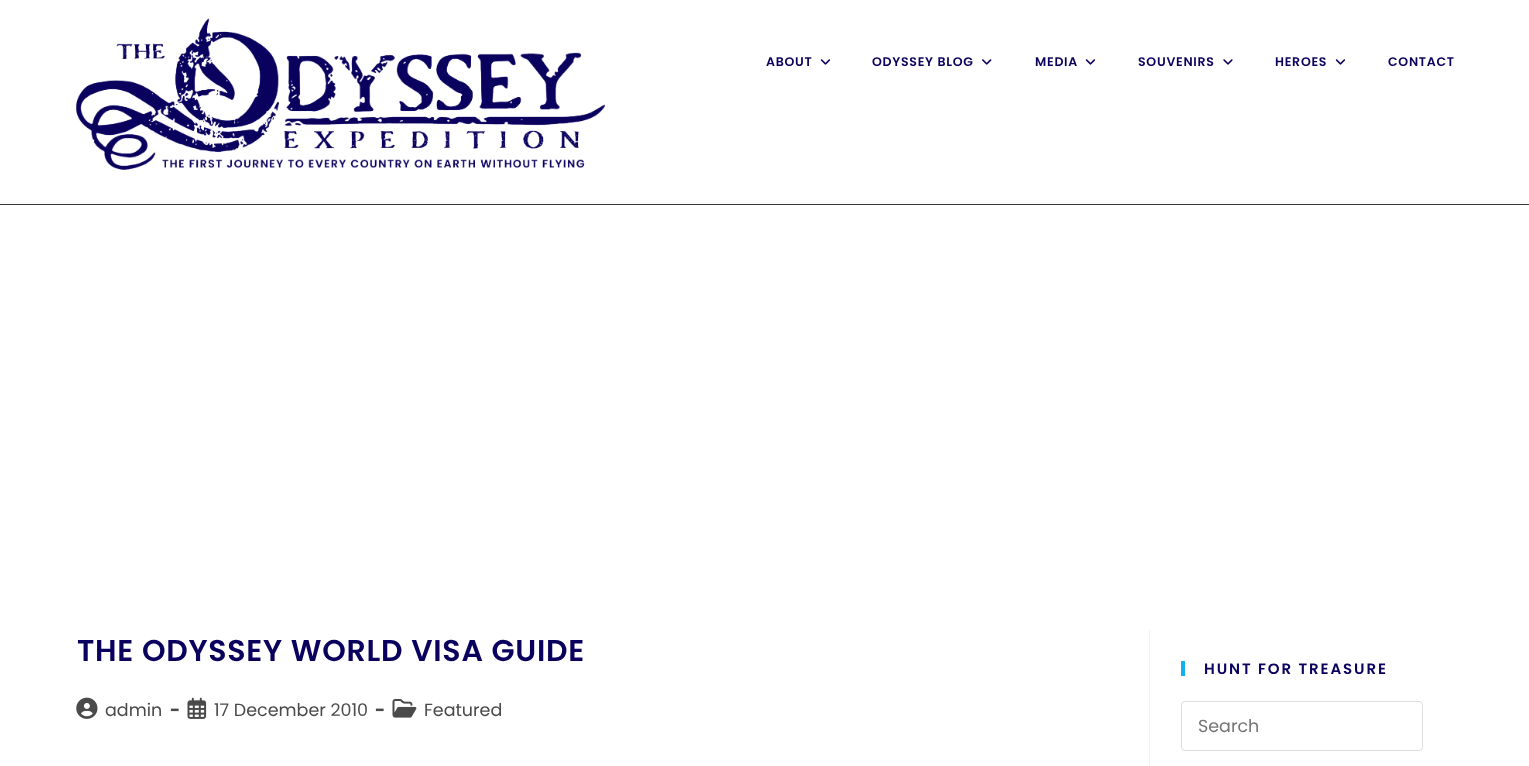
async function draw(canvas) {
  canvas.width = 1529
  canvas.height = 766
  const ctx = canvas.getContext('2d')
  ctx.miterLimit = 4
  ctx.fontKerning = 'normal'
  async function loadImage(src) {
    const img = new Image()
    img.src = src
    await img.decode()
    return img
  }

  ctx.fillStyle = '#fff'
  ctx.fillRect(0, 0, 1529, 766)
  ctx.fillStyle = '#383838'
  ctx.fillRect(0, 204, 1529, 1)
  ctx.drawImage(await loadImage('image0.png'), 76, 18, 529, 152)
  ctx.letterSpacing = '0.75px'
  ctx.font = '600 12.5px Poppins'
  ctx.fillStyle = '#0a015e'
  ctx.fillText('ABOUT', 766, 66)
  ctx.drawImage(await loadImage('image1.png'), 820, 59, 11, 6)
  ctx.fillText('ODYSSEY BLOG', 872, 66)
  ctx.drawImage(await loadImage('image2.png'), 982, 59, 10, 6)
  ctx.fillText('MEDIA', 1035, 66)
  ctx.drawImage(await loadImage('image1.png'), 1085, 59, 11, 6)
  ctx.fillText('SOUVENIRS', 1138, 66)
  ctx.drawImage(await loadImage('image3.png'), 1223, 59, 10, 6)
  ctx.fillText('HEROES', 1275, 66)
  ctx.drawImage(await loadImage('image1.png'), 1335, 59, 11, 6)
  ctx.fillText('CONTACT', 1388, 66)
  ctx.fillStyle = '#f1f1f1'
  ctx.fillRect(1149, 630, 1, 136)
  ctx.font = '600 30px Poppins'
  ctx.fillStyle = '#0a015e'
  ctx.fillText('THE ODYSSEY WORLD VISA GUIDE', 77, 661)
  ctx.drawImage(await loadImage('image4.png'), 76, 697, 22, 22)
  ctx.letterSpacing = '0px'
  ctx.font = '17.5px Poppins'
  ctx.fillStyle = '#4a4a4a'
  ctx.fillText('admin', 105, 716)
  ctx.font = 'bold 17.5px Poppins'
  ctx.fillText('-', 170, 716)
  ctx.drawImage(await loadImage('image5.png'), 187, 697, 20, 22)
  ctx.font = '17.5px Poppins'
  ctx.fillText('17 December 2010', 214, 716)
  ctx.font = 'bold 17.5px Poppins'
  ctx.fillText('-', 375, 716)
  ctx.drawImage(await loadImage('image6.png'), 392, 699, 25, 19)
  ctx.font = '17.5px Poppins'
  ctx.fillText('Featured', 424, 716)
  ctx.fillStyle = '#13aff0'
  ctx.fillRect(1181, 661, 4, 15)
  ctx.letterSpacing = '1.9px'
  ctx.font = '600 15px Poppins'
  ctx.fillStyle = '#0a015e'
  ctx.fillText('HUNT FOR TREASURE', 1204, 674)
  ctx.beginPath()
  ctx.roundRect(1181.5, 701.5, 241, 49, 3.5)
  ctx.strokeStyle = '#ddd'
  ctx.stroke()
  ctx.letterSpacing = '0px'
  ctx.font = '17.5px Poppins'
  ctx.fillStyle = '#757575'
  ctx.fillText('Search', 1198, 732)
}

draw(document.querySelector('canvas'))
